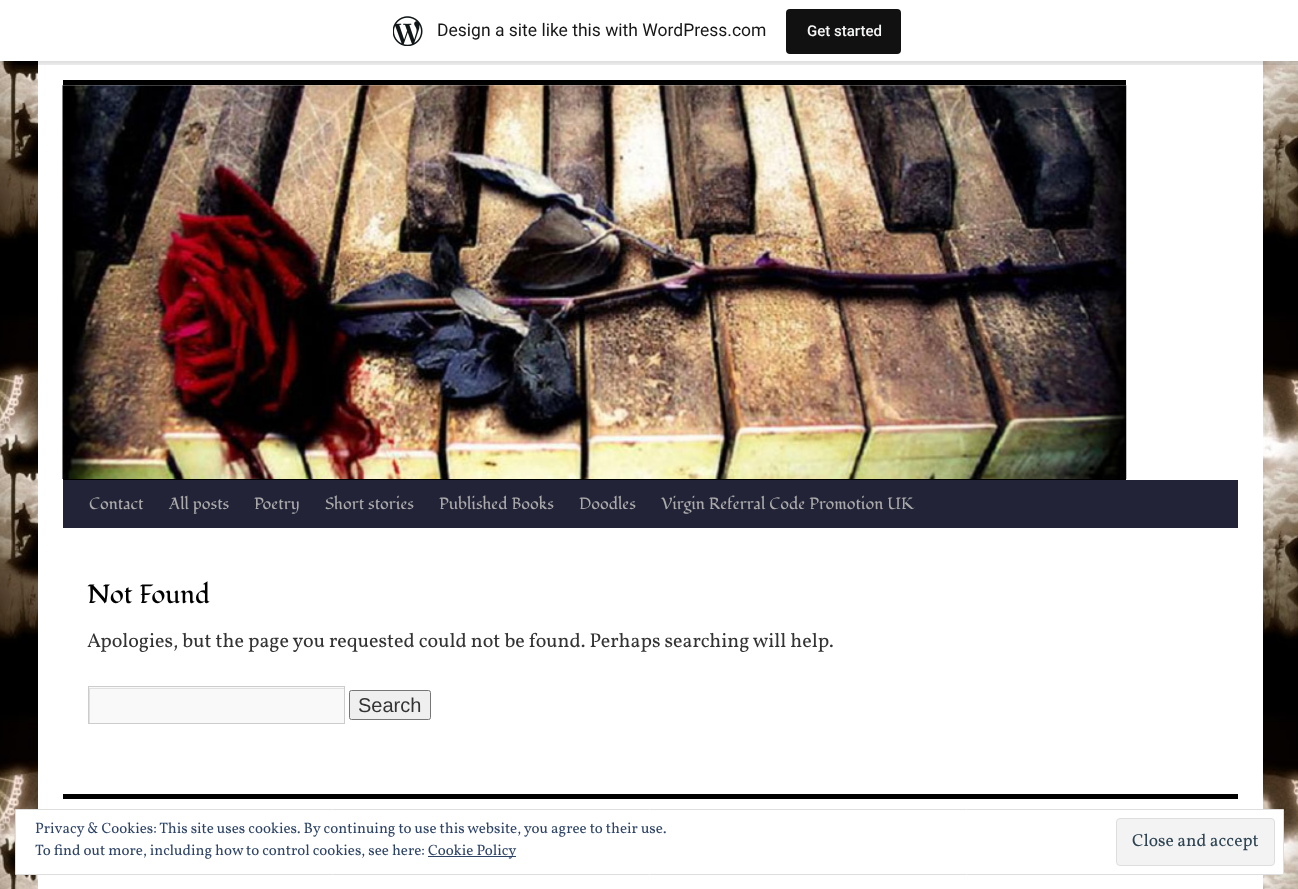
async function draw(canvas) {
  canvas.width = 1298
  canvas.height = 889
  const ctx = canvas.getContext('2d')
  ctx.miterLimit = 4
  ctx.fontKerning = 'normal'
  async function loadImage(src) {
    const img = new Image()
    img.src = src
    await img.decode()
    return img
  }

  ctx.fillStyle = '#fff'
  ctx.fillRect(0, 0, 1298, 889)
  ctx.drawImage(await loadImage('image0.png'), 0, 61, 1298, 828)
  ctx.fillRect(38, 61, 1225, 828)
  ctx.fillStyle = '#0000000d'
  ctx.filter = 'blur(1px)'
  ctx.beginPath()
  ctx.rect(0, 1, 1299, 62)
  ctx.fill()
  ctx.filter = 'none'
  ctx.fillStyle = '#00000014'
  ctx.beginPath()
  ctx.moveTo(1, 61)
  ctx.lineTo(1, 65)
  ctx.lineTo(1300, 65)
  ctx.lineTo(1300, 4)
  ctx.lineTo(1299, 4)
  ctx.lineTo(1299, 61)
  ctx.closePath()
  ctx.fill()
  ctx.fillStyle = '#fff'
  ctx.fillRect(0, 0, 1298, 61)
  ctx.drawImage(await loadImage('image1.png'), 393, 16, 30, 30)
  ctx.font = '17.5px Roboto'
  ctx.fillStyle = '#171717'
  ctx.fillText('Design a site like this with WordPress.com', 437, 36)
  ctx.fillStyle = '#111'
  ctx.beginPath()
  ctx.roundRect(786, 9, 115, 45, 4)
  ctx.fill()
  ctx.font = '500 15px Roboto'
  ctx.fillStyle = '#f6f7f7'
  ctx.fillText('Get started', 807, 36)
  ctx.fillStyle = '#000'
  ctx.fillRect(63, 80, 1063, 5)
  ctx.fillRect(63, 479, 1063, 1)
  ctx.drawImage(await loadImage('image2.png'), 62, 85, 1065, 394)
  ctx.fillStyle = '#222337'
  ctx.fillRect(63, 480, 1175, 48)
  ctx.font = '16.25px Fondamento'
  ctx.fillStyle = '#aaa'
  ctx.fillText('Contact', 89, 509)
  ctx.fillText('All posts', 169, 509)
  ctx.fillText('Poetry', 254, 509)
  ctx.fillText('Short stories', 325, 509)
  ctx.fillText('Published Books', 439, 509)
  ctx.fillText('Doodles', 579, 509)
  ctx.fillText('Virgin Referral Code Promotion UK', 661, 509)
  ctx.font = '26.25px Fondamento'
  ctx.fillStyle = '#000'
  ctx.fillText('Not Found', 87, 603)
  ctx.font = '20px Vollkorn'
  ctx.fillStyle = '#333'
  ctx.fillText('Apologies, but the page you requested could not be found. Perhaps searching will help.', 87, 647)
  ctx.fillStyle = '#f9f9f9'
  ctx.fillRect(89, 687, 255, 36)
  ctx.save()
  ctx.beginPath()
  ctx.rect(89, 688, 255, 35)
  ctx.clip()
  ctx.fillStyle = '#e0e0e0'
  ctx.beginPath()
  ctx.moveTo(-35, 564)
  ctx.lineTo(468, 564)
  ctx.lineTo(468, 846)
  ctx.lineTo(-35, 846)
  ctx.closePath()
  ctx.moveTo(90, 689)
  ctx.lineTo(345, 689)
  ctx.lineTo(345, 724)
  ctx.lineTo(90, 724)
  ctx.closePath()
  ctx.fill('evenodd')
  ctx.restore()
  ctx.strokeStyle = '#ccc'
  ctx.strokeRect(88.5, 686.5, 256, 37)
  ctx.fillStyle = '#efefef'
  ctx.beginPath()
  ctx.roundRect(349.5, 690.5, 81, 29, 2)
  ctx.fill()
  ctx.strokeStyle = '#767676'
  ctx.stroke()
  ctx.font = '20px Liberation Sans'
  ctx.fillStyle = '#333'
  ctx.fillText('Search', 358, 712)
  ctx.fillStyle = '#000'
  ctx.fillRect(63, 794, 1175, 5)
  ctx.fillStyle = '#fff'
  ctx.beginPath()
  ctx.rect(15.5, 809.5, 1268, 65)
  ctx.fill()
  ctx.strokeStyle = '#dedede'
  ctx.stroke()
  ctx.font = '15px Vollkorn'
  ctx.fillStyle = '#2e4467'
  ctx.fillText('Privacy & Cookies: This site uses cookies. By continuing to use this website, you agree to their use.', 35, 833)
  ctx.fillText('To find out more, including how to control cookies, see here:', 35, 855)
  ctx.fillRect(428, 856, 88, 1)
  ctx.fillText('Cookie Policy', 428, 855)
  ctx.fillStyle = '#f3f3f3'
  ctx.beginPath()
  ctx.roundRect(1116.5, 818.5, 158, 47, 3.5)
  ctx.fill()
  ctx.stroke()
  ctx.font = '17.5px Vollkorn'
  ctx.fillStyle = '#2e4453'
  ctx.fillText('Close and accept', 1132, 846)
}

draw(document.querySelector('canvas'))
